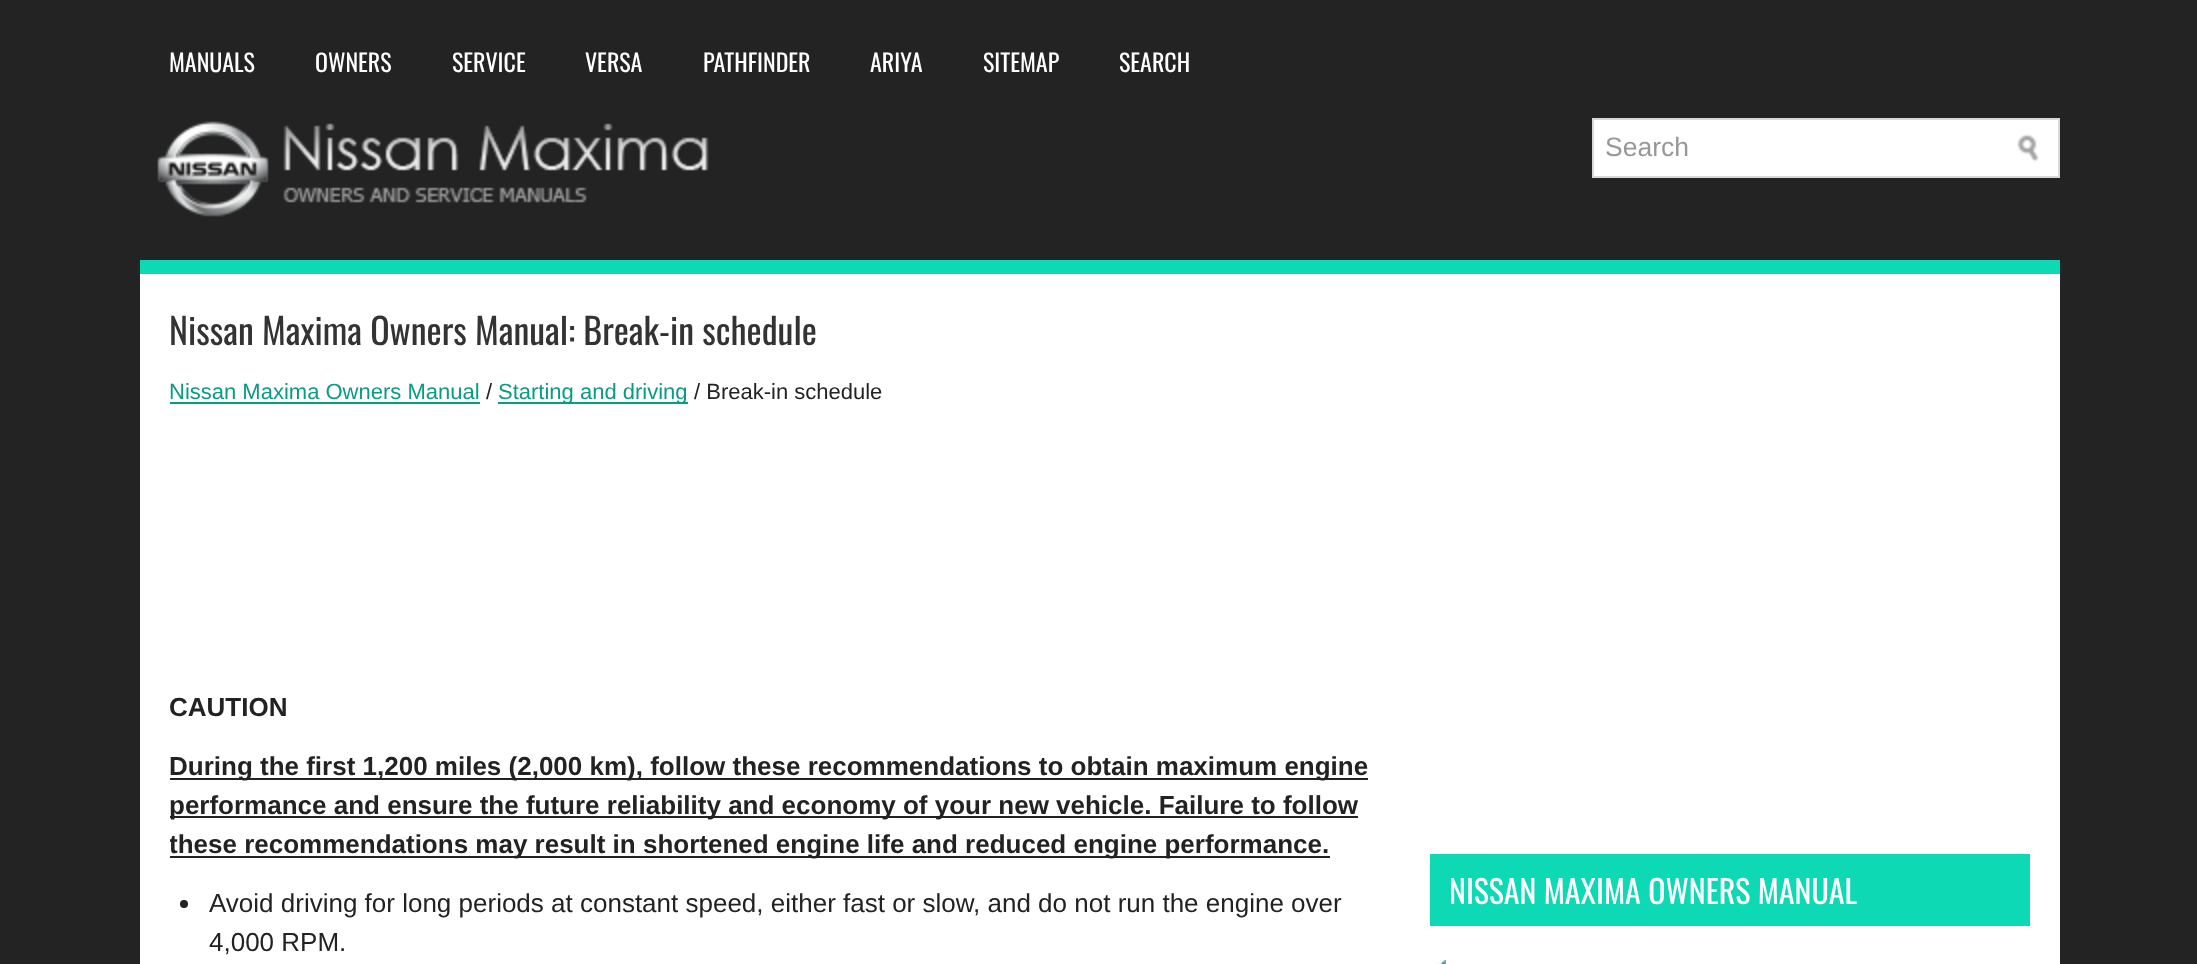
async function draw(canvas) {
  canvas.width = 2197
  canvas.height = 964
  const ctx = canvas.getContext('2d')
  ctx.miterLimit = 4
  ctx.fontKerning = 'normal'
  async function loadImage(src) {
    const img = new Image()
    img.src = src
    await img.decode()
    return img
  }

  ctx.fillStyle = '#232323'
  ctx.fillRect(0, 0, 2197, 964)
  ctx.font = '24px Oswald'
  ctx.fillStyle = '#fff'
  ctx.fillText('MANUALS', 169, 72)
  ctx.fillText('OWNERS', 315, 72)
  ctx.fillText('SERVICE', 452, 72)
  ctx.fillText('VERSA', 585, 72)
  ctx.fillText('PATHFINDER', 703, 72)
  ctx.fillText('ARIYA', 870, 72)
  ctx.fillText('SITEMAP', 983, 72)
  ctx.fillText('SEARCH', 1119, 72)
  ctx.drawImage(await loadImage('image0.png'), 157, 121, 552, 96)
  ctx.beginPath()
  ctx.rect(1593, 119, 466, 58)
  ctx.fill()
  ctx.strokeStyle = '#d8d8d8'
  ctx.lineWidth = 2
  ctx.stroke()
  ctx.font = '26.5px Liberation Sans'
  ctx.fillStyle = '#979797'
  ctx.fillText('Search', 1605, 156)
  ctx.drawImage(await loadImage('image1.png'), 2017, 134, 22, 28)
  ctx.fillStyle = '#0ed9b5'
  ctx.fillRect(140, 260, 1920, 14)
  ctx.fillStyle = '#fff'
  ctx.fillRect(140, 274, 1920, 690)
  ctx.font = '36px Oswald'
  ctx.fillStyle = '#333'
  ctx.fillText('Nissan Maxima Owners Manual: Break-in schedule', 169, 345)
  ctx.font = '22px Liberation Sans'
  ctx.fillStyle = '#099c82'
  ctx.fillText('Nissan Maxima Owners Manual', 169, 399)
  ctx.fillRect(170, 402, 310, 2)
  ctx.fillStyle = '#222'
  ctx.fillText('/', 486, 399)
  ctx.fillStyle = '#099c82'
  ctx.fillRect(498, 402, 190, 2)
  ctx.fillText('Starting and driving', 498, 399)
  ctx.fillStyle = '#222'
  ctx.fillText('/ Break-in schedule', 694, 399)
  ctx.font = 'bold 26px Liberation Sans'
  ctx.fillText('CAUTION', 169, 716)
  ctx.fillRect(170, 778, 1198, 2)
  ctx.fillText('During the first 1,200 miles (2,000 km), follow these recommendations to obtain maximum engine', 169, 775)
  ctx.fillRect(170, 816, 1188, 2)
  ctx.fillText('performance and ensure the future reliability and economy of your new vehicle. Failure to follow', 169, 814)
  ctx.fillRect(170, 856, 1160, 2)
  ctx.save()
  ctx.beginPath()
  ctx.rect(170, 304, 1230, 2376)
  ctx.clip()
  ctx.fillText('these recommendations may result in shortened engine life and reduced engine performance.', 169, 853)
  ctx.restore()
  ctx.beginPath()
  ctx.arc(184, 904, 4, 0, 2 * Math.PI)
  ctx.fill()
  ctx.font = '26px Liberation Sans'
  ctx.fillText('Avoid driving for long periods at constant speed, either fast or slow, and do not run the engine over', 209, 912)
  ctx.fillText('4,000 RPM.', 209, 951)
  ctx.fillStyle = '#0ed9b5'
  ctx.fillRect(1430, 854, 600, 72)
  ctx.font = '32px Oswald'
  ctx.fillStyle = '#fff'
  ctx.fillText('NISSAN MAXIMA OWNERS MANUAL', 1449, 904)
  ctx.drawImage(await loadImage('image2.png'), 1436, 960, 10, 4)
}

draw(document.querySelector('canvas'))
